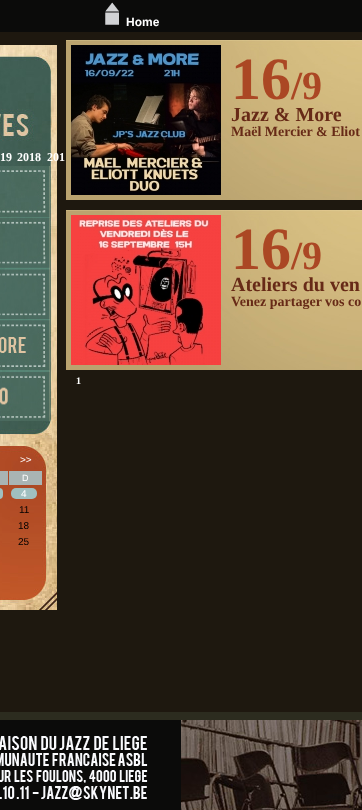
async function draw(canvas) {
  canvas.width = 362
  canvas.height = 810
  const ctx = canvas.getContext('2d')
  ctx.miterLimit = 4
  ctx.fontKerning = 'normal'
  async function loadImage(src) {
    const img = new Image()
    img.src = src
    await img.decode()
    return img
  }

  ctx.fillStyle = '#1e180f'
  ctx.fillRect(0, 0, 362, 810)
  ctx.fillStyle = '#0b0b0a'
  ctx.fillRect(0, 0, 362, 32)
  ctx.drawImage(await loadImage('image0.png'), 105, 2, 14, 23)
  ctx.font = 'bold 12px Liberation Sans'
  ctx.fillStyle = '#fff'
  ctx.fillText('Home', 126, 26)
  ctx.fillStyle = '#2c2c1f'
  ctx.fillRect(0, 712, 362, 8)
  ctx.fillStyle = '#0b0b0a'
  ctx.fillRect(0, 720, 181, 90)
  ctx.drawImage(await loadImage('image1.png'), 181, 720, 181, 90)
  ctx.drawImage(await loadImage('image2.png'), 0, 736, 148, 64)
  ctx.drawImage(await loadImage('image3.png'), 0, 45, 57, 565)
  ctx.font = 'bold 12px Liberation Serif'
  ctx.fillStyle = '#fff'
  ctx.fillText('19', 0, 161)
  ctx.fillText('2018', 17, 161)
  ctx.fillText('201', 47, 161)
  ctx.drawImage(await loadImage('image4.png'), 0, 166, 50, 51)
  ctx.drawImage(await loadImage('image5.png'), 0, 217, 50, 51)
  ctx.drawImage(await loadImage('image6.png'), 0, 268, 50, 51)
  ctx.drawImage(await loadImage('image7.png'), 0, 319, 50, 51)
  ctx.drawImage(await loadImage('image8.png'), 0, 370, 50, 51)
  ctx.font = '10px Liberation Sans'
  ctx.fillText('>>', 20, 463)
  ctx.fillStyle = '#a9b4b3'
  ctx.fillRect(0, 471, 8, 14)
  ctx.fillRect(9, 471, 33, 14)
  ctx.font = '9px Liberation Sans'
  ctx.fillStyle = '#fff'
  ctx.fillText('D', 22, 481)
  ctx.fillStyle = '#a0c0c0'
  ctx.beginPath()
  ctx.roundRect(-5, 488, 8, 11, 5)
  ctx.fill()
  ctx.beginPath()
  ctx.roundRect(11, 488, 26, 11, 5)
  ctx.fill()
  ctx.font = '10px Liberation Sans'
  ctx.fillStyle = '#fff'
  ctx.fillText('4', 21, 497)
  ctx.fillStyle = '#000'
  ctx.fillText('11', 19, 513)
  ctx.fillText('18', 18, 529)
  ctx.fillText('25', 18, 545)
  ctx.drawImage(await loadImage('image9.png'), 66, 40, 296, 160)
  ctx.drawImage(await loadImage('image10.png'), 71, 45, 150, 150)
  ctx.font = 'bold 60px Liberation Serif'
  ctx.fillStyle = '#ab4724'
  ctx.fillText('16', 231, 99)
  ctx.font = 'bold 40px Liberation Serif'
  ctx.fillText('/9', 291, 99)
  ctx.font = 'bold 20px Liberation Serif'
  ctx.fillStyle = '#672a17'
  ctx.fillText('Jazz & More', 231, 121)
  ctx.font = 'bold 14px Liberation Serif'
  ctx.fillText('Maël Mercier & Eliot', 231, 136)
  ctx.drawImage(await loadImage('image9.png'), 66, 210, 296, 160)
  ctx.drawImage(await loadImage('image11.png'), 71, 215, 150, 150)
  ctx.font = 'bold 60px Liberation Serif'
  ctx.fillStyle = '#ab4724'
  ctx.fillText('16', 231, 269)
  ctx.font = 'bold 40px Liberation Serif'
  ctx.fillText('/9', 291, 269)
  ctx.font = 'bold 20px Liberation Serif'
  ctx.fillStyle = '#672a17'
  ctx.fillText('Ateliers du ven', 231, 291)
  ctx.font = 'bold 14px Liberation Serif'
  ctx.fillText('Venez partager vos co', 231, 306)
  ctx.font = 'bold 10px Liberation Serif'
  ctx.fillStyle = '#fff'
  ctx.fillText('1', 76, 384)
}

draw(document.querySelector('canvas'))
